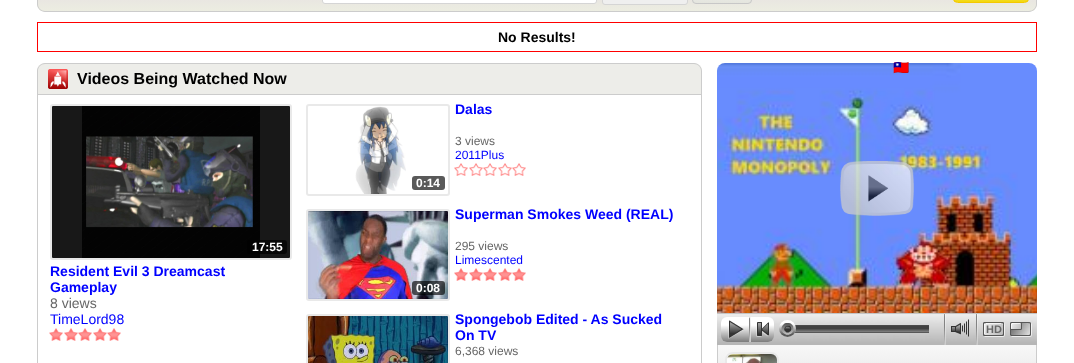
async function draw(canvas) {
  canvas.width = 1074
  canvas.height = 363
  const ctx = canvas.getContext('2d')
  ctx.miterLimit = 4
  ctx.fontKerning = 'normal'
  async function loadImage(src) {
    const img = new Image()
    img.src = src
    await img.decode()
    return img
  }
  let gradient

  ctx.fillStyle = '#fff'
  ctx.fillRect(0, 0, 1074, 363)
  ctx.strokeStyle = '#f00'
  ctx.strokeRect(37.5, 22.5, 999, 29)
  ctx.font = 'bold 14px Liberation Sans'
  ctx.fillStyle = '#000'
  ctx.fillText('No Results!', 498, 42)
  ctx.save()
  ctx.beginPath()
  ctx.roundRect(37, -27, 1000, 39, 8)
  ctx.clip()
  gradient = ctx.createLinearGradient(537, -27, 537, 11)
  gradient.addColorStop(0.01, '#e2d7e2')
  gradient.addColorStop(1, '#ecede1')
  ctx.fillStyle = gradient
  ctx.beginPath()
  ctx.moveTo(45, -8)
  ctx.lineTo(1029, -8)
  ctx.bezierCurveTo(1033.5, -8, 1037, -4.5, 1037, 0)
  ctx.lineTo(1037, 11)
  ctx.lineTo(37, 11)
  ctx.lineTo(37, 0)
  ctx.bezierCurveTo(37, -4.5, 40.5, -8, 45, -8)
  ctx.closePath()
  ctx.fill()
  ctx.restore()
  ctx.fillStyle = '#ccc'
  ctx.beginPath()
  ctx.moveTo(45, -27)
  ctx.lineTo(1029, -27)
  ctx.bezierCurveTo(1033, -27, 1037, -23, 1037, -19)
  ctx.lineTo(1037, 4)
  ctx.bezierCurveTo(1037, 8, 1033, 12, 1029, 12)
  ctx.lineTo(45, 12)
  ctx.bezierCurveTo(41, 12, 37, 8, 37, 4)
  ctx.lineTo(37, -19)
  ctx.bezierCurveTo(37, -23, 41, -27, 45, -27)
  ctx.closePath()
  ctx.moveTo(45, -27)
  ctx.lineTo(1029, -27)
  ctx.bezierCurveTo(1033, -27, 1036, -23, 1036, -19)
  ctx.lineTo(1036, 4)
  ctx.bezierCurveTo(1036, 8, 1033, 11, 1029, 11)
  ctx.lineTo(45, 11)
  ctx.bezierCurveTo(41, 11, 38, 8, 38, 4)
  ctx.lineTo(38, -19)
  ctx.bezierCurveTo(38, -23, 41, -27, 45, -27)
  ctx.closePath()
  ctx.fill('evenodd')
  ctx.fillStyle = '#fff'
  ctx.beginPath()
  ctx.roundRect(322.5, -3.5, 274, 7, 2.5)
  ctx.fill()
  ctx.strokeStyle = '#d5d5d5'
  ctx.stroke()
  ctx.fillStyle = '#efefef'
  ctx.beginPath()
  ctx.roundRect(602.5, -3.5, 85, 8, 2.5)
  ctx.fill()
  ctx.stroke()
  ctx.save()
  ctx.beginPath()
  ctx.roundRect(692, -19, 60, 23, 4)
  ctx.clip()
  gradient = ctx.createLinearGradient(722, -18, 722, 3)
  gradient.addColorStop(0, '#f4f4f4')
  gradient.addColorStop(1, '#e4e5de')
  ctx.fillStyle = gradient
  ctx.fillRect(692, 0, 60, 3)
  ctx.restore()
  ctx.beginPath()
  ctx.roundRect(692.5, -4.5, 59, 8, 3.5)
  ctx.strokeStyle = '#c7c7c7'
  ctx.stroke()
  ctx.save()
  ctx.beginPath()
  ctx.roundRect(953, -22, 76, 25, 5)
  ctx.clip()
  gradient = ctx.createLinearGradient(991, -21, 991, 2)
  gradient.addColorStop(0.07, '#fffbc7')
  gradient.addColorStop(1, '#f2d70c')
  ctx.fillStyle = gradient
  ctx.fillRect(953, 0, 76, 2)
  ctx.restore()
  ctx.beginPath()
  ctx.roundRect(953.5, -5.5, 75, 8, 4.5)
  ctx.strokeStyle = '#f4c800'
  ctx.stroke()
  ctx.drawImage(await loadImage('image10.png'), 717, 63, 320, 250)
  ctx.font = 'bold 13px Noto Color Emoji'
  ctx.fillStyle = '#83a1f6'
  ctx.fillText('🇹🇼', 893, 72)
  ctx.fillStyle = '#edede9'
  ctx.beginPath()
  ctx.roundRect(37, 63, 665, 31, [8, 8, 0, 0])
  ctx.fill()
  ctx.fillStyle = '#ccc'
  ctx.beginPath()
  ctx.moveTo(45, 63)
  ctx.lineTo(694, 63)
  ctx.bezierCurveTo(698, 63, 702, 67, 702, 71)
  ctx.lineTo(702, 94)
  ctx.lineTo(37, 94)
  ctx.lineTo(37, 71)
  ctx.bezierCurveTo(37, 67, 41, 63, 45, 63)
  ctx.closePath()
  ctx.moveTo(45, 64)
  ctx.lineTo(694, 64)
  ctx.bezierCurveTo(698, 64, 701, 67, 701, 71)
  ctx.lineTo(701, 94)
  ctx.lineTo(38, 94)
  ctx.lineTo(38, 71)
  ctx.bezierCurveTo(38, 67, 41, 64, 45, 64)
  ctx.closePath()
  ctx.fill('evenodd')
  ctx.drawImage(await loadImage('image0.png'), 48, 69, 20, 20)
  ctx.font = 'bold 16px Liberation Sans'
  ctx.fillStyle = '#000'
  ctx.fillText('Videos Being Watched Now', 77, 84)
  ctx.strokeStyle = '#ccc'
  ctx.strokeRect(37.5, 94.5, 664, 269)
  ctx.beginPath()
  ctx.roundRect(51, 105, 240, 154, 2)
  ctx.strokeStyle = '#e9e9e9'
  ctx.lineWidth = 2
  ctx.stroke()
  ctx.drawImage(await loadImage('image1.png'), 52, 106, 238, 152)
  ctx.fillStyle = '#000000a6'
  ctx.beginPath()
  ctx.roundRect(247, 240, 40, 14, 3)
  ctx.fill()
  ctx.font = 'bold 12px Liberation Sans'
  ctx.fillStyle = '#fff'
  ctx.fillText('17:55', 252, 251)
  ctx.font = 'bold 14px Liberation Sans'
  ctx.fillStyle = '#00f'
  ctx.fillText('Resident Evil 3 Dreamcast', 50, 276)
  ctx.fillText('Gameplay', 50, 292)
  ctx.font = '14px Liberation Sans'
  ctx.fillStyle = '#666'
  ctx.fillText('8 views', 50, 308)
  ctx.fillStyle = '#00f'
  ctx.fillText('TimeLord98', 50, 324)
  ctx.drawImage(await loadImage('image2.png'), 49, 328, 14, 13)
  ctx.drawImage(await loadImage('image2.png'), 64, 328, 14, 13)
  ctx.drawImage(await loadImage('image2.png'), 78, 328, 14, 13)
  ctx.drawImage(await loadImage('image2.png'), 93, 328, 14, 13)
  ctx.drawImage(await loadImage('image2.png'), 107, 328, 14, 13)
  ctx.font = 'bold 14px Liberation Sans'
  ctx.fillText('Dalas', 455, 114)
  ctx.font = '12px Liberation Sans'
  ctx.fillStyle = '#666'
  ctx.fillText('3 views', 455, 145)
  ctx.fillStyle = '#00f'
  ctx.fillText('2011Plus', 455, 159)
  ctx.drawImage(await loadImage('image3.png'), 454, 163, 14, 13)
  ctx.drawImage(await loadImage('image3.png'), 469, 163, 14, 13)
  ctx.drawImage(await loadImage('image4.png'), 483, 163, 14, 13)
  ctx.drawImage(await loadImage('image4.png'), 498, 163, 14, 13)
  ctx.drawImage(await loadImage('image4.png'), 512, 163, 14, 13)
  ctx.beginPath()
  ctx.roundRect(307, 105, 142, 90, 2)
  ctx.stroke()
  ctx.drawImage(await loadImage('image5.png'), 355, 106, 51, 88)
  ctx.fillStyle = '#595959'
  ctx.beginPath()
  ctx.roundRect(412, 176, 33, 14, 3)
  ctx.fill()
  ctx.font = 'bold 12px Liberation Sans'
  ctx.fillStyle = '#fff'
  ctx.fillText('0:14', 416, 187)
  ctx.font = 'bold 14px Liberation Sans'
  ctx.fillStyle = '#00f'
  ctx.fillText('Superman Smokes Weed (REAL)', 455, 219)
  ctx.font = '12px Liberation Sans'
  ctx.fillStyle = '#666'
  ctx.fillText('295 views', 455, 250)
  ctx.fillStyle = '#00f'
  ctx.fillText('Limescented', 455, 264)
  ctx.drawImage(await loadImage('image6.png'), 454, 268, 14, 13)
  ctx.drawImage(await loadImage('image6.png'), 469, 268, 14, 13)
  ctx.drawImage(await loadImage('image7.png'), 483, 268, 14, 13)
  ctx.drawImage(await loadImage('image7.png'), 498, 268, 14, 13)
  ctx.drawImage(await loadImage('image7.png'), 512, 268, 14, 13)
  ctx.beginPath()
  ctx.roundRect(307, 210, 142, 90, 2)
  ctx.stroke()
  ctx.drawImage(await loadImage('image8.png'), 308, 211, 140, 88)
  ctx.fillStyle = '#000000a6'
  ctx.beginPath()
  ctx.roundRect(412, 281, 33, 14, 3)
  ctx.fill()
  ctx.font = 'bold 12px Liberation Sans'
  ctx.fillStyle = '#fff'
  ctx.fillText('0:08', 416, 292)
  ctx.beginPath()
  ctx.roundRect(307, 315, 142, 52, 2)
  ctx.stroke()
  ctx.drawImage(await loadImage('image9.png'), 308, 316, 140, 47)
  ctx.font = 'bold 14px Liberation Sans'
  ctx.fillStyle = '#00f'
  ctx.fillText('Spongebob Edited - As Sucked', 455, 324)
  ctx.fillText('On TV', 455, 340)
  ctx.font = '12px Liberation Sans'
  ctx.fillStyle = '#666'
  ctx.fillText('6,368 views', 455, 355)
  ctx.drawImage(await loadImage('image11.png'), 840, 161, 74, 55)
  ctx.drawImage(await loadImage('image12.png'), 717, 313, 320, 32)
  ctx.fillStyle = '#fff'
  ctx.beginPath()
  ctx.roundRect(721, 317, 30, 25, [6, 0, 0, 6])
  ctx.fill()
  ctx.drawImage(await loadImage('image13.png'), 721, 317, 30, 25)
  ctx.beginPath()
  ctx.roundRect(751, 317, 23, 25, [0, 6, 6, 0])
  ctx.fill()
  ctx.drawImage(await loadImage('image14.png'), 751, 322, 23, 20)
  ctx.fillStyle = '#666'
  ctx.fillRect(787, 325, 142, 8)
  ctx.drawImage(await loadImage('image15.png'), 794, 325, 135, 8)
  ctx.fillStyle = '#fff'
  ctx.beginPath()
  ctx.arc(787.5, 328.5, 8.5, 0, 2 * Math.PI)
  ctx.fill()
  ctx.drawImage(await loadImage('image16.png'), 779, 323, 17, 14)
  ctx.fillRect(944, 314, 2, 31)
  ctx.drawImage(await loadImage('image17.png'), 944, 314, 2, 31)
  ctx.drawImage(await loadImage('image18.png'), 951, 319, 18, 18)
  ctx.fillRect(976, 314, 2, 31)
  ctx.drawImage(await loadImage('image17.png'), 976, 314, 2, 31)
  ctx.drawImage(await loadImage('image19.png'), 983, 322, 22, 15)
  ctx.font = 'bold 11px Liberation Sans'
  ctx.fillStyle = '#666'
  ctx.fillText('HD', 986, 333)
  ctx.drawImage(await loadImage('image20.png'), 1010, 322, 22, 15)
  gradient = ctx.createLinearGradient(877, 345, 877, 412)
  gradient.addColorStop(0.03, '#f7f7f7')
  gradient.addColorStop(1, '#ddd')
  ctx.fillStyle = gradient
  ctx.fillRect(718, 345, 318, 18)
  ctx.fillStyle = '#ccc'
  ctx.beginPath()
  ctx.moveTo(717, 345)
  ctx.lineTo(1037, 345)
  ctx.lineTo(1037, 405)
  ctx.bezierCurveTo(1037, 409, 1033, 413, 1029, 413)
  ctx.lineTo(725, 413)
  ctx.bezierCurveTo(721, 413, 717, 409, 717, 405)
  ctx.closePath()
  ctx.moveTo(718, 345)
  ctx.lineTo(1036, 345)
  ctx.lineTo(1036, 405)
  ctx.bezierCurveTo(1036, 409, 1033, 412, 1029, 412)
  ctx.lineTo(725, 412)
  ctx.bezierCurveTo(721, 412, 718, 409, 718, 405)
  ctx.closePath()
  ctx.fill('evenodd')
  ctx.beginPath()
  ctx.roundRect(726, 353, 52, 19, 7)
  ctx.stroke()
  ctx.drawImage(await loadImage('image21.png'), 727, 354, 50, 9)
}

draw(document.querySelector('canvas'))
